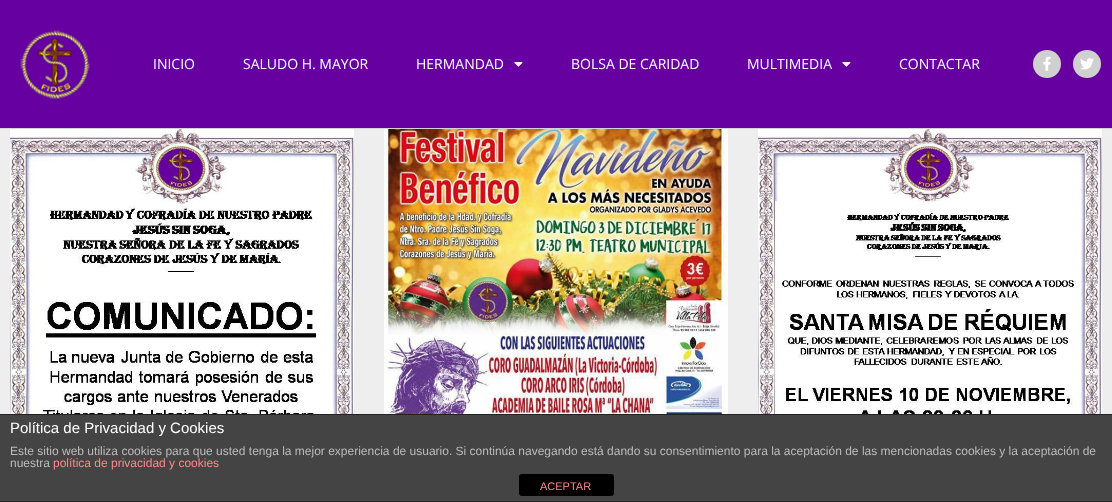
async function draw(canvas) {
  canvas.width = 1112
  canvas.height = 502
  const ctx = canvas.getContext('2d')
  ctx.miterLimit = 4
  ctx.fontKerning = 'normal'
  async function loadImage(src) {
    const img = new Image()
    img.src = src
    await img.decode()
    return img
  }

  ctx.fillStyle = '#eee'
  ctx.fillRect(0, 0, 1112, 502)
  ctx.fillStyle = '#6600a1'
  ctx.fillRect(0, 0, 1112, 128)
  ctx.fillStyle = '#d3d3d3'
  ctx.fillRect(0, 128, 1112, 1)
  ctx.drawImage(await loadImage('image0.png'), 20, 30, 70, 70)
  ctx.font = '14px Open Sans'
  ctx.fillStyle = '#fff'
  ctx.fillText('INICIO', 153, 69)
  ctx.fillText('SALUDO H. MAYOR', 243, 69)
  ctx.fillText('HERMANDAD', 416, 69)
  ctx.drawImage(await loadImage('image1.png'), 514, 62, 9, 5)
  ctx.fillText('BOLSA DE CARIDAD', 571, 69)
  ctx.fillText('MULTIMEDIA', 747, 69)
  ctx.drawImage(await loadImage('image1.png'), 842, 62, 9, 5)
  ctx.fillText('CONTACTAR', 899, 69)
  ctx.fillStyle = '#d0d0d0'
  ctx.beginPath()
  ctx.arc(1047, 64, 14, 0, 2 * Math.PI)
  ctx.fill()
  ctx.drawImage(await loadImage('image2.png'), 1043, 56, 8, 15)
  ctx.beginPath()
  ctx.arc(1087, 64, 14, 0, 2 * Math.PI)
  ctx.fill()
  ctx.drawImage(await loadImage('image3.png'), 1080, 58, 14, 12)
  ctx.drawImage(await loadImage('image4.png'), 10, 129, 344, 285)
  ctx.drawImage(await loadImage('image5.png'), 384, 129, 344, 285)
  ctx.drawImage(await loadImage('image6.png'), 758, 129, 344, 285)
  ctx.fillStyle = '#444'
  ctx.fillRect(0, 415, 1112, 86)
  ctx.fillStyle = '#222'
  ctx.fillRect(0, 414, 1112, 1)
  ctx.fillRect(0, 501, 1112, 1)
  ctx.font = '15px Liberation Sans'
  ctx.fillStyle = '#fff'
  ctx.fillText('Política de Privacidad y Cookies', 10, 433)
  ctx.font = '12px Liberation Sans'
  ctx.fillStyle = '#bbb'
  ctx.fillText('Este sitio web utiliza cookies para que usted tenga la mejor experiencia de usuario. Si continúa navegando está dando su consentimiento para la aceptación de las mencionadas cookies y la aceptación de', 10, 455)
  ctx.fillText('nuestra', 10, 467)
  ctx.fillStyle = '#f88'
  ctx.fillText('política de privacidad y cookies', 53, 467)
  ctx.fillStyle = '#000'
  ctx.beginPath()
  ctx.roundRect(519, 474, 95, 22, 3)
  ctx.fill()
  ctx.font = '11px Liberation Sans'
  ctx.fillStyle = '#f88'
  ctx.fillText('ACEPTAR', 540, 490)
}

draw(document.querySelector('canvas'))
